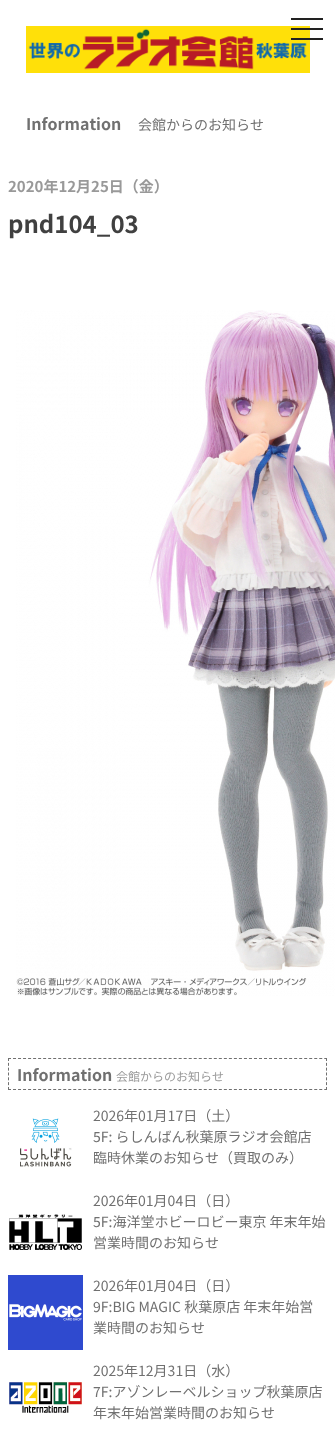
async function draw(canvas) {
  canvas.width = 335
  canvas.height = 1445
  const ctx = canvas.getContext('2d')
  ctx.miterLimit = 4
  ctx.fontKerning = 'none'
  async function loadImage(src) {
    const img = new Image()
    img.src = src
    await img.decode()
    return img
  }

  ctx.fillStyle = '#fff'
  ctx.fillRect(0, 0, 335, 1445)
  ctx.drawImage(await loadImage('image0.png'), 26, 26, 284, 47)
  ctx.fillStyle = '#222'
  ctx.fillRect(291, 28, 32, 2)
  ctx.fillRect(291, 18, 32, 2)
  ctx.fillRect(291, 38, 32, 2)
  ctx.font = 'bold 16px Noto Sans JP'
  ctx.fillStyle = '#707070'
  ctx.fillText('Information', 26, 130)
  ctx.font = '14px Noto Sans JP'
  ctx.fillText('会館からのお知らせ', 138, 130)
  ctx.font = 'bold 15px Noto Sans JP'
  ctx.fillStyle = '#999'
  ctx.fillText('2020年12月25日（金）', 8, 192)
  ctx.font = 'bold 24px Noto Sans JP'
  ctx.fillStyle = '#404040'
  ctx.fillText('pnd104_03', 8, 233)
  ctx.drawImage(await loadImage('image1.png'), 16, 310, 319, 686)
  ctx.beginPath()
  ctx.moveTo(8, 1058.5)
  ctx.lineTo(327, 1058.5)
  ctx.strokeStyle = '#707070'
  ctx.setLineDash([3, 2.02])
  ctx.stroke()
  ctx.beginPath()
  ctx.moveTo(326.5, 1058)
  ctx.lineTo(326.5, 1090)
  ctx.setLineDash([3, 1.83])
  ctx.stroke()
  ctx.beginPath()
  ctx.moveTo(8, 1089.5)
  ctx.lineTo(327, 1089.5)
  ctx.setLineDash([3, 2.02])
  ctx.stroke()
  ctx.beginPath()
  ctx.moveTo(8.5, 1058)
  ctx.lineTo(8.5, 1090)
  ctx.setLineDash([3, 1.83])
  ctx.stroke()
  ctx.font = 'bold 16px Noto Sans JP'
  ctx.fillStyle = '#707070'
  ctx.fillText('Information', 17, 1081)
  ctx.font = '12px Noto Sans JP'
  ctx.fillStyle = '#999'
  ctx.fillText('会館からのお知らせ', 116, 1081)
  ctx.drawImage(await loadImage('image2.png'), 20, 1118, 52, 49)
  ctx.font = '14px Noto Sans JP'
  ctx.fillStyle = '#707070'
  ctx.fillText('2026年01月17日（土）', 93, 1121)
  ctx.fillText('5F: らしんばん秋葉原ラジオ会館店', 93, 1142)
  ctx.fillText('臨時休業のお知らせ（買取のみ）', 93, 1163)
  ctx.drawImage(await loadImage('image3.png'), 9, 1214, 73, 36)
  ctx.fillText('2026年01月04日（日）', 93, 1206)
  ctx.fillText('5F:海洋堂ホビーロビー東京 年末年始', 93, 1227)
  ctx.fillText('営業時間のお知らせ', 93, 1248)
  ctx.drawImage(await loadImage('image4.png'), 8, 1275, 75, 75)
  ctx.fillText('2026年01月04日（日）', 93, 1291)
  ctx.fillText('9F:BIG MAGIC 秋葉原店 年末年始営', 93, 1312)
  ctx.fillText('業時間のお知らせ', 93, 1333)
  ctx.drawImage(await loadImage('image5.png'), 9, 1382, 73, 31)
  ctx.fillText('2025年12月31日（水）', 93, 1376)
  ctx.fillText('7F:アゾンレーベルショップ秋葉原店', 93, 1397)
  ctx.fillText('年末年始営業時間のお知らせ', 93, 1418)
}

draw(document.querySelector('canvas'))
